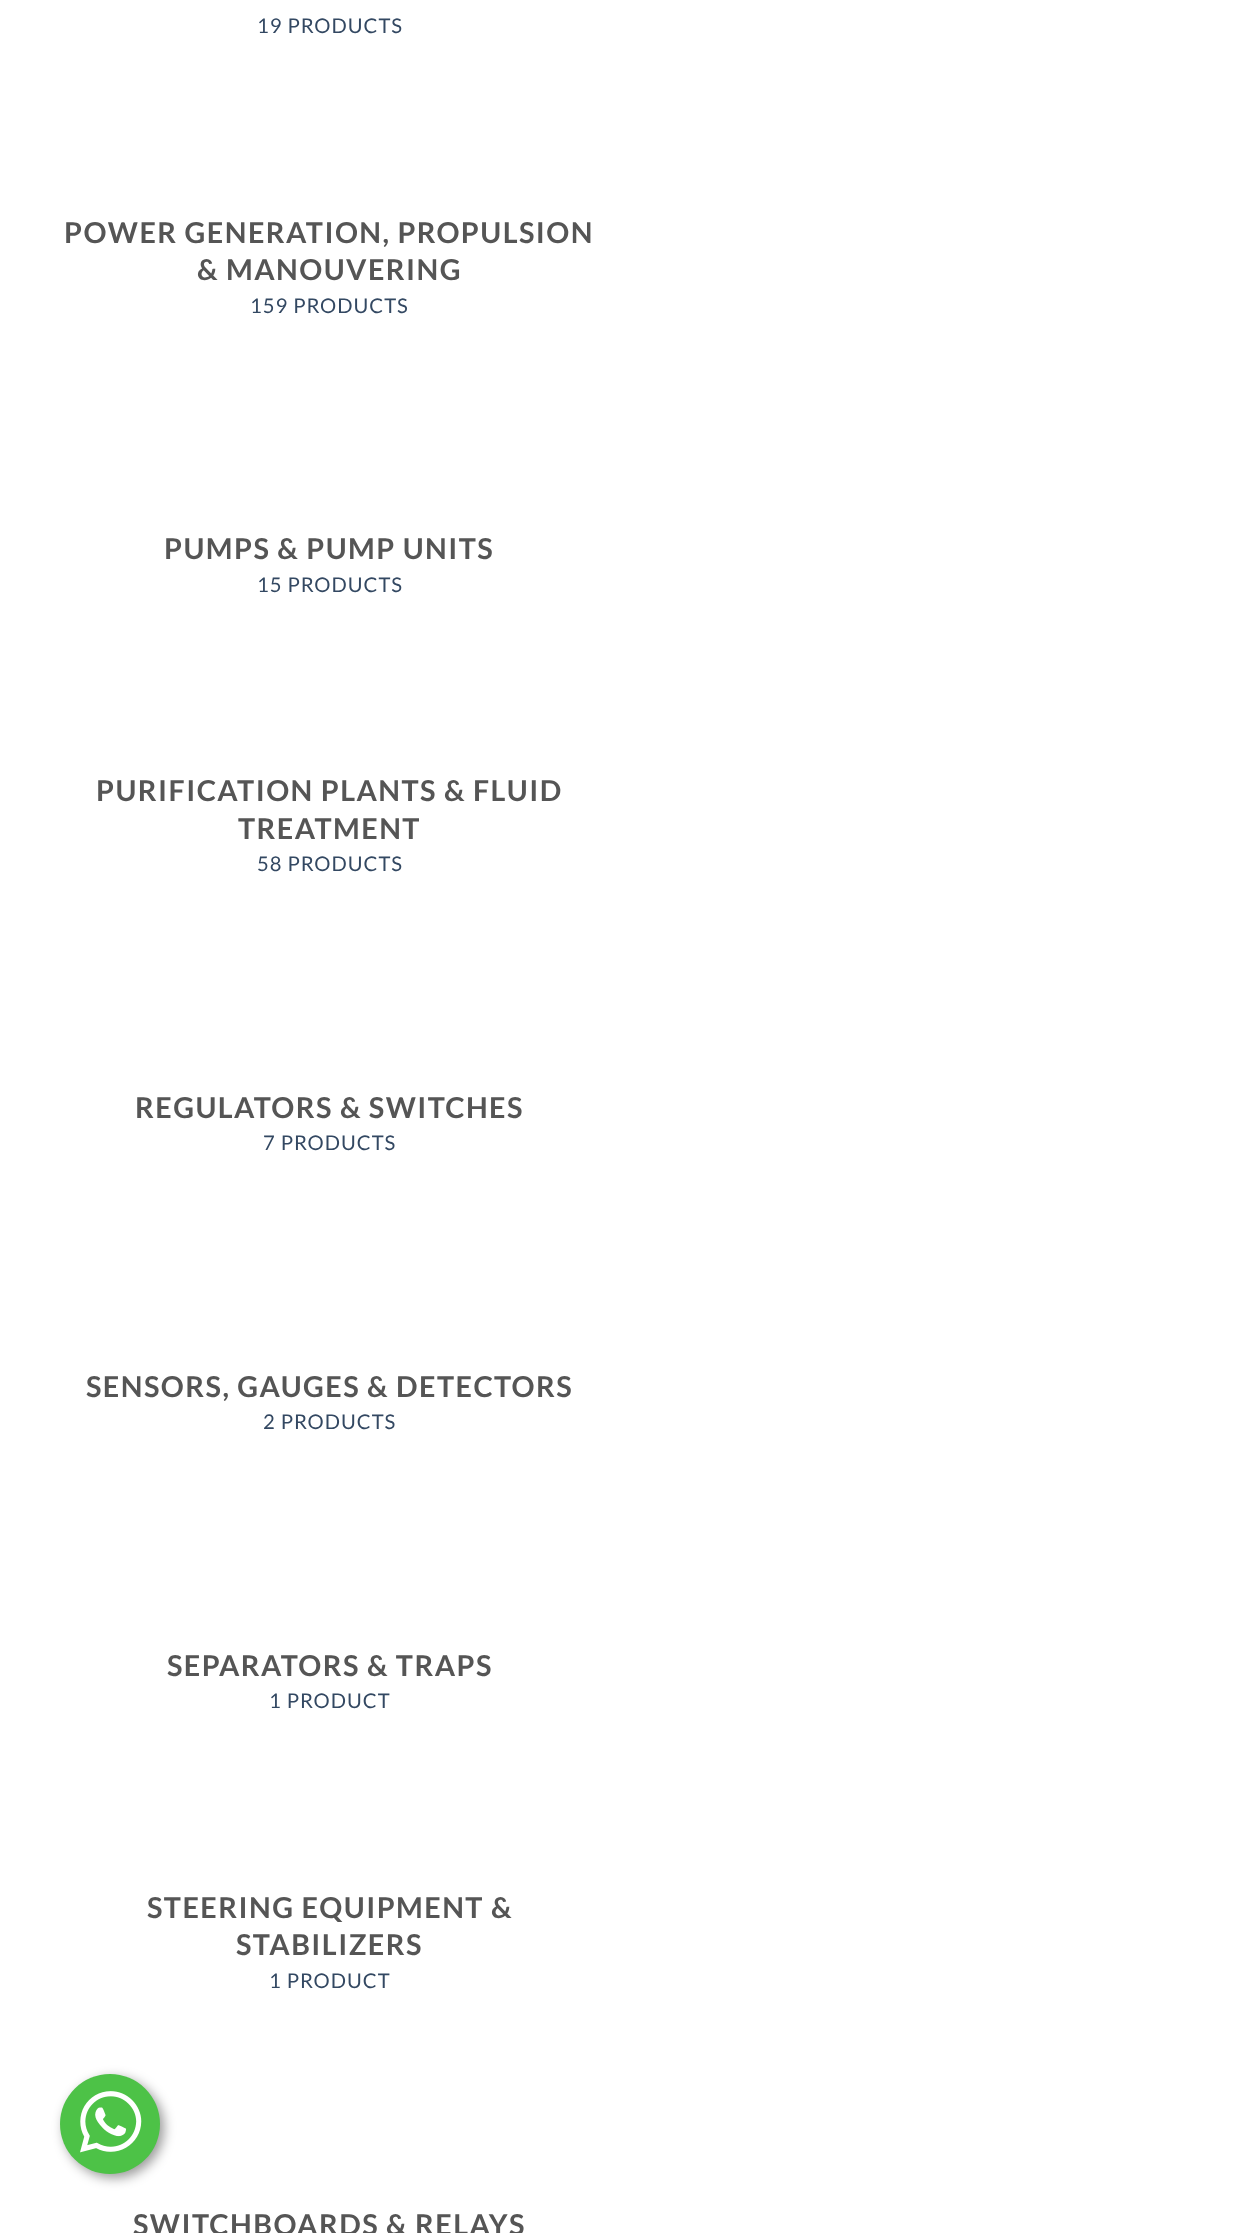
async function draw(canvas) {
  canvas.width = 1252
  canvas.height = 2233
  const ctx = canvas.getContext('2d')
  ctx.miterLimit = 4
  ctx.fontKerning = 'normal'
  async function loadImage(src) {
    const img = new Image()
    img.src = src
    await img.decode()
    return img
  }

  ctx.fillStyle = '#fff'
  ctx.fillRect(0, 0, 1252, 2233)
  ctx.letterSpacing = '1px'
  ctx.font = '20.25px Lato'
  ctx.fillStyle = '#334862'
  ctx.fillText('19 PRODUCTS', 257, 33)
  ctx.letterSpacing = '1.45px'
  ctx.font = 'bold 28.75px Lato'
  ctx.fillStyle = '#555'
  ctx.fillText('POWER GENERATION, PROPULSION', 64, 243)
  ctx.fillText('& MANOUVERING', 197, 280)
  ctx.letterSpacing = '1px'
  ctx.font = '20.25px Lato'
  ctx.fillStyle = '#334862'
  ctx.fillText('159 PRODUCTS', 250, 313)
  ctx.letterSpacing = '1.45px'
  ctx.font = 'bold 28.75px Lato'
  ctx.fillStyle = '#555'
  ctx.fillText('PUMPS & PUMP UNITS', 164, 559)
  ctx.letterSpacing = '1px'
  ctx.font = '20.25px Lato'
  ctx.fillStyle = '#334862'
  ctx.fillText('15 PRODUCTS', 257, 592)
  ctx.letterSpacing = '1.45px'
  ctx.font = 'bold 28.75px Lato'
  ctx.fillStyle = '#555'
  ctx.fillText('PURIFICATION PLANTS & FLUID', 96, 801)
  ctx.fillText('TREATMENT', 238, 839)
  ctx.letterSpacing = '1px'
  ctx.font = '20.25px Lato'
  ctx.fillStyle = '#334862'
  ctx.fillText('58 PRODUCTS', 257, 871)
  ctx.letterSpacing = '1.45px'
  ctx.font = 'bold 28.75px Lato'
  ctx.fillStyle = '#555'
  ctx.fillText('REGULATORS & SWITCHES', 135, 1118)
  ctx.letterSpacing = '1px'
  ctx.font = '20.25px Lato'
  ctx.fillStyle = '#334862'
  ctx.fillText('7 PRODUCTS', 263, 1150)
  ctx.letterSpacing = '1.45px'
  ctx.font = 'bold 28.75px Lato'
  ctx.fillStyle = '#555'
  ctx.fillText('SENSORS, GAUGES & DETECTORS', 86, 1397)
  ctx.letterSpacing = '1px'
  ctx.font = '20.25px Lato'
  ctx.fillStyle = '#334862'
  ctx.fillText('2 PRODUCTS', 263, 1429)
  ctx.letterSpacing = '1.45px'
  ctx.font = 'bold 28.75px Lato'
  ctx.fillStyle = '#555'
  ctx.fillText('SEPARATORS & TRAPS', 167, 1676)
  ctx.letterSpacing = '1px'
  ctx.font = '20.25px Lato'
  ctx.fillStyle = '#334862'
  ctx.fillText('1 PRODUCT', 269, 1708)
  ctx.letterSpacing = '1.45px'
  ctx.font = 'bold 28.75px Lato'
  ctx.fillStyle = '#555'
  ctx.fillText('STEERING EQUIPMENT &', 147, 1918)
  ctx.fillText('STABILIZERS', 236, 1955)
  ctx.letterSpacing = '1px'
  ctx.font = '20.25px Lato'
  ctx.fillStyle = '#334862'
  ctx.fillText('1 PRODUCT', 269, 1988)
  ctx.letterSpacing = '1.45px'
  ctx.font = 'bold 28.75px Lato'
  ctx.fillStyle = '#555'
  ctx.fillText('SWITCHBOARDS & RELAYS', 133, 2235)
  ctx.fillStyle = '#00000066'
  ctx.filter = 'blur(6px)'
  ctx.beginPath()
  ctx.roundRect(64, 2078, 100, 100, 50)
  ctx.fill()
  ctx.filter = 'none'
  ctx.fillStyle = '#4dc247'
  ctx.beginPath()
  ctx.arc(110, 2124, 50, 0, 2 * Math.PI)
  ctx.fill()
  ctx.drawImage(await loadImage('image0.png'), 80, 2091, 62, 62)
}

draw(document.querySelector('canvas'))
